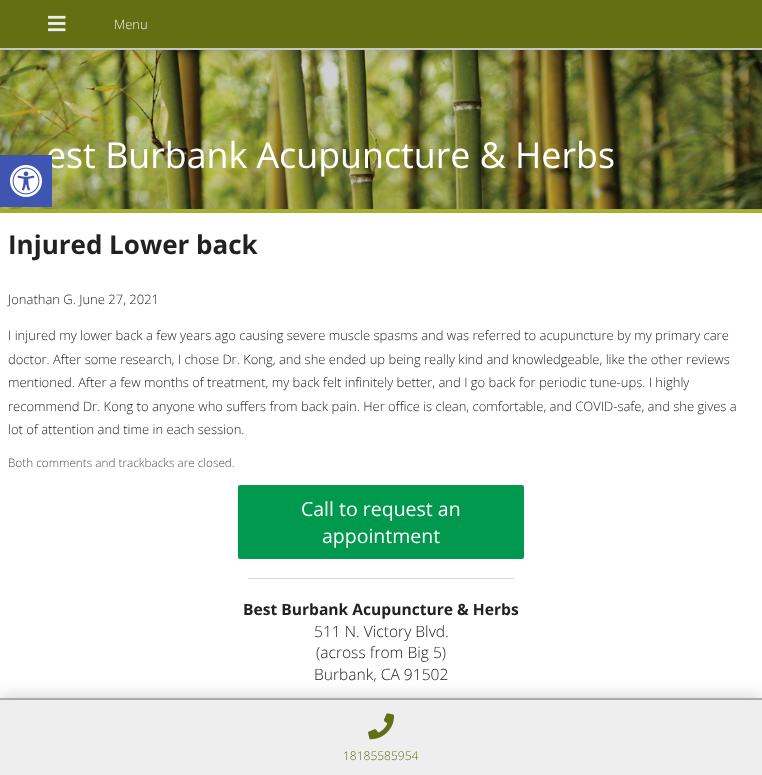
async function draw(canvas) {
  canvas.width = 762
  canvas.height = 775
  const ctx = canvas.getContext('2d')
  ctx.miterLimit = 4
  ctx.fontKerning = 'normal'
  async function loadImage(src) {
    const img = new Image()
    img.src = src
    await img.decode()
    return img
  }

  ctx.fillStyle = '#fff'
  ctx.fillRect(0, 0, 762, 775)
  ctx.drawImage(await loadImage('image1.png'), 0, 50, 762, 159)
  ctx.fillStyle = '#00000026'
  ctx.filter = 'blur(8px)'
  ctx.beginPath()
  ctx.rect(0, 3, 762, 50)
  ctx.fill()
  ctx.filter = 'none'
  ctx.fillStyle = '#627013'
  ctx.fillRect(0, 0, 762, 48)
  ctx.fillStyle = '#c6c6c6'
  ctx.fillRect(0, 48, 762, 2)
  ctx.drawImage(await loadImage('image0.png'), 48, 15, 18, 17)
  ctx.font = '300 13px Open Sans'
  ctx.fillStyle = '#eee'
  ctx.fillText('Menu', 114, 29)
  ctx.fillStyle = '#a5af2f'
  ctx.fillRect(0, 209, 762, 4)
  ctx.font = '35.75px Open Sans'
  ctx.fillStyle = '#fff'
  ctx.fillText('est Burbank Acupuncture & Herbs', 46, 168)
  ctx.font = 'bold 26px Open Sans'
  ctx.fillStyle = '#222'
  ctx.fillText('Injured Lower back', 8, 254)
  ctx.font = '300 13px Open Sans'
  ctx.fillText('Jonathan G. June 27, 2021', 8, 304)
  ctx.fillText('I injured my lower back a few years ago causing severe muscle spasms and was referred to acupuncture by my primary care', 8, 340)
  ctx.fillText('doctor. After some research, I chose Dr. Kong, and she ended up being really kind and knowledgeable, like the other reviews', 8, 364)
  ctx.fillText('mentioned. After a few months of treatment, my back felt infinitely better, and I go back for periodic tune-ups. I highly', 8, 387)
  ctx.fillText('recommend Dr. Kong to anyone who suffers from back pain. Her office is clean, comfortable, and COVID-safe, and she gives a', 8, 411)
  ctx.fillText('lot of attention and time in each session.', 8, 434)
  ctx.font = '300 11.75px Open Sans'
  ctx.fillStyle = '#4e4e4e'
  ctx.fillText('Both comments and trackbacks are closed.', 8, 467)
  ctx.fillStyle = '#01994d'
  ctx.beginPath()
  ctx.roundRect(238, 485, 286, 74, 2)
  ctx.fill()
  ctx.font = '19.5px Open Sans'
  ctx.fillStyle = '#fff'
  ctx.fillText('Call to request an', 301, 516)
  ctx.fillText('appointment', 322, 543)
  ctx.fillStyle = '#d9d9d9'
  ctx.fillRect(248, 578, 266, 1)
  ctx.font = 'bold 15.6px Open Sans'
  ctx.fillStyle = '#222'
  ctx.fillText('Best Burbank Acupuncture & Herbs', 243, 615)
  ctx.font = '300 15.6px Open Sans'
  ctx.fillText('511 N. Victory Blvd.', 314, 637)
  ctx.fillText('(across from Big 5)', 316, 658)
  ctx.fillText('Burbank, CA 91502', 314, 680)
  ctx.fillStyle = '#0000001a'
  ctx.filter = 'blur(5px)'
  ctx.beginPath()
  ctx.rect(0, 155, 52, 52)
  ctx.fill()
  ctx.filter = 'none'
  ctx.fillStyle = '#4054b2'
  ctx.fillRect(0, 155, 52, 52)
  ctx.drawImage(await loadImage('image2.png'), 10, 165, 32, 32)
  ctx.fillStyle = '#00000026'
  ctx.filter = 'blur(8px)'
  ctx.beginPath()
  ctx.rect(0, 695, 762, 77)
  ctx.fill()
  ctx.filter = 'none'
  ctx.fillStyle = '#eee'
  ctx.fillRect(0, 700, 762, 75)
  ctx.fillStyle = '#aaa'
  ctx.fillRect(0, 698, 762, 2)
  ctx.drawImage(await loadImage('image3.png'), 368, 713, 26, 27)
  ctx.font = '300 12px Open Sans'
  ctx.fillStyle = '#627013'
  ctx.fillText('18185585954', 343, 760)
}

draw(document.querySelector('canvas'))
